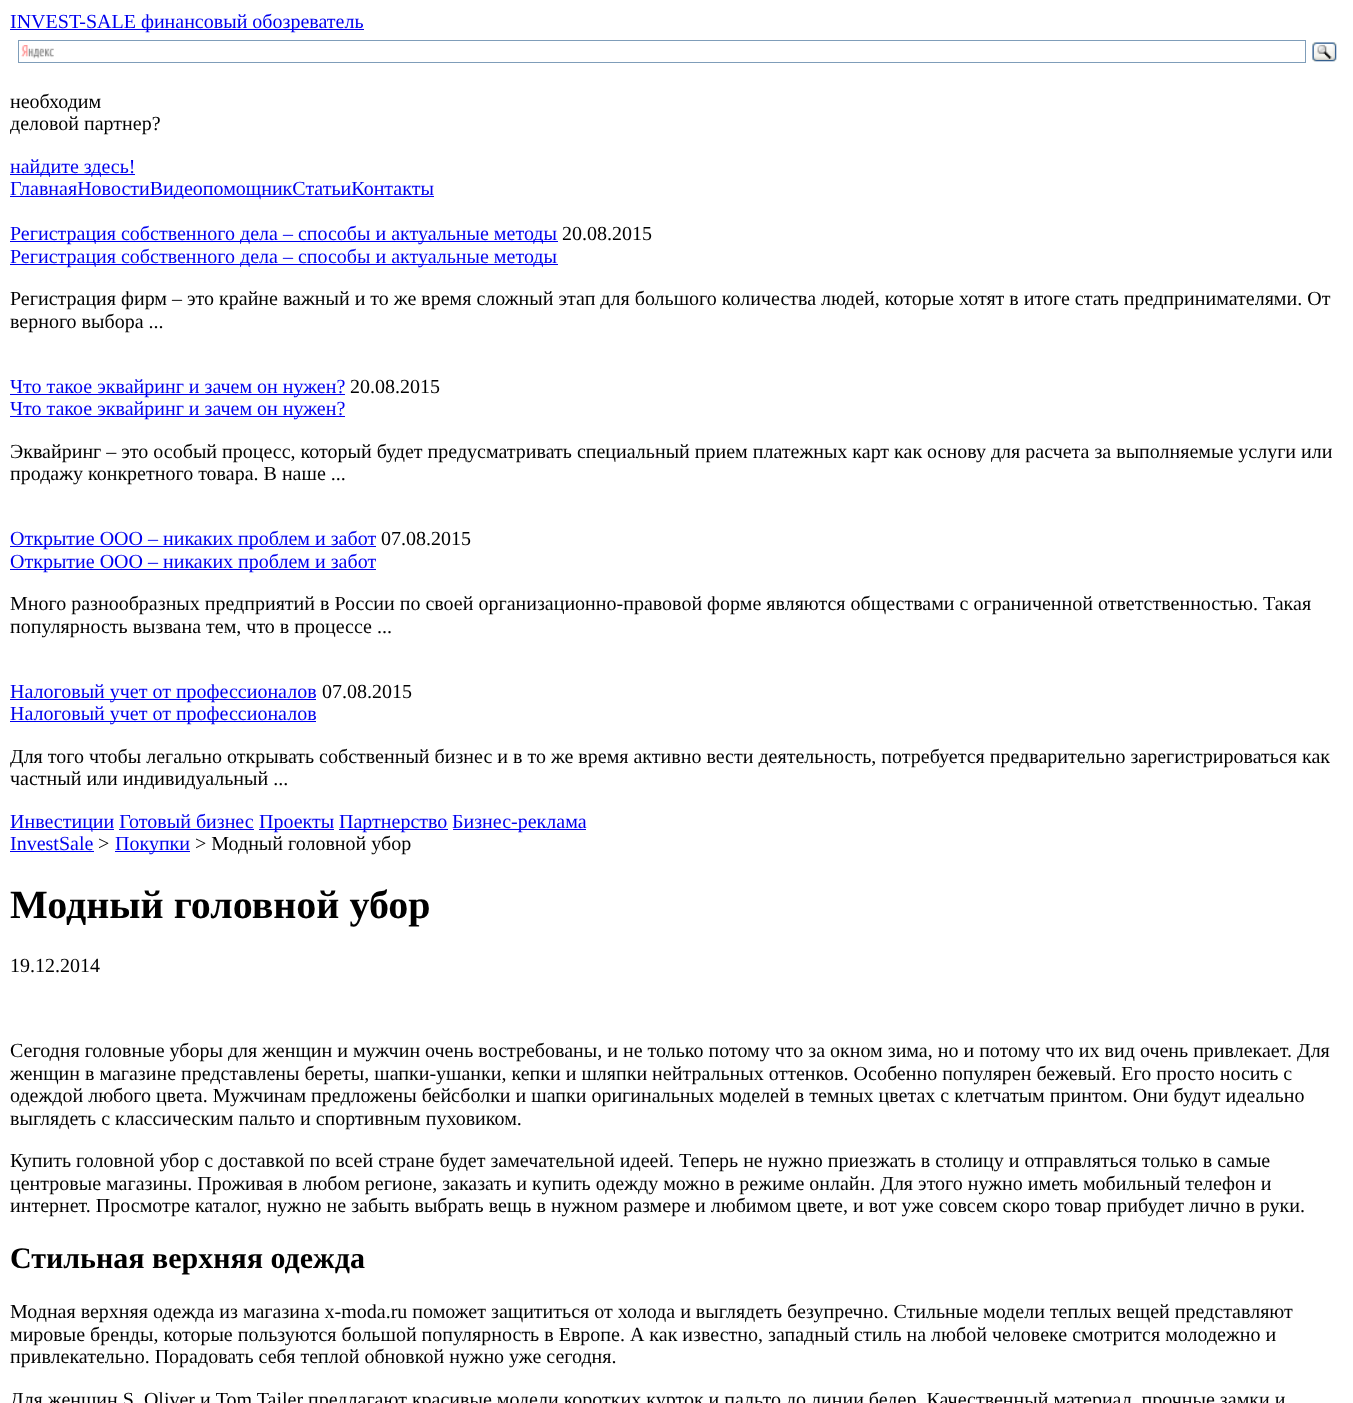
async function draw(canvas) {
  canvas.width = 1353
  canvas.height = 1403
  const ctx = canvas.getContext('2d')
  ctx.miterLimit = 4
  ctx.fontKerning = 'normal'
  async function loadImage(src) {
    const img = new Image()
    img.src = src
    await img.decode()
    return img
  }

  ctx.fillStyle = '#fff'
  ctx.fillRect(0, 0, 1353, 1403)
  ctx.fillStyle = '#00e'
  ctx.fillRect(10, 29, 354, 1)
  ctx.font = '20px Liberation Serif'
  ctx.fillText('INVEST-SALE финансовый обозреватель', 10, 28)
  ctx.drawImage(await loadImage('image0.png'), 21, 45, 33, 14)
  ctx.strokeStyle = '#7f9db9'
  ctx.strokeRect(18.5, 40.5, 1287, 22)
  ctx.drawImage(await loadImage('image1.png'), 1312, 42, 25, 20)
  ctx.fillStyle = '#000'
  ctx.fillText('необходим', 10, 108)
  ctx.fillText('деловой партнер?', 10, 130)
  ctx.fillStyle = '#00e'
  ctx.fillRect(10, 174, 125, 1)
  ctx.fillText('найдите здесь!', 10, 173)
  ctx.fillRect(10, 196, 424, 1)
  ctx.fillText('ГлавнаяНовостиВидеопомощникСтатьиКонтакты', 10, 195)
  ctx.fillRect(10, 241, 548, 1)
  ctx.fillText('Регистрация собственного дела – способы и актуальные методы', 10, 240)
  ctx.fillStyle = '#000'
  ctx.fillText('20.08.2015', 562, 240)
  ctx.fillStyle = '#00e'
  ctx.fillRect(10, 264, 548, 1)
  ctx.fillText('Регистрация собственного дела – способы и актуальные методы', 10, 263)
  ctx.fillStyle = '#000'
  ctx.fillText('Регистрация фирм – это крайне важный и то же время сложный этап для большого количества людей, которые хотят в итоге стать предпринимателями. От', 10, 305)
  ctx.fillText('верного выбора ...', 10, 328)
  ctx.fillStyle = '#00e'
  ctx.fillRect(10, 394, 335, 1)
  ctx.fillText('Что такое эквайринг и зачем он нужен?', 10, 393)
  ctx.fillStyle = '#000'
  ctx.fillText('20.08.2015', 350, 393)
  ctx.fillStyle = '#00e'
  ctx.fillRect(10, 416, 335, 1)
  ctx.fillText('Что такое эквайринг и зачем он нужен?', 10, 415)
  ctx.fillStyle = '#000'
  ctx.fillText('Эквайринг – это особый процесс, который будет предусматривать специальный прием платежных карт как основу для расчета за выполняемые услуги или', 10, 458)
  ctx.fillText('продажу конкретного товара. В наше ...', 10, 480)
  ctx.fillStyle = '#00e'
  ctx.fillRect(10, 546, 366, 1)
  ctx.fillText('Открытие ООО – никаких проблем и забот', 10, 545)
  ctx.fillStyle = '#000'
  ctx.fillText('07.08.2015', 381, 545)
  ctx.fillStyle = '#00e'
  ctx.fillRect(10, 569, 366, 1)
  ctx.fillText('Открытие ООО – никаких проблем и забот', 10, 568)
  ctx.fillStyle = '#000'
  ctx.fillText('Много разнообразных предприятий в России по своей организационно-правовой форме являются обществами с ограниченной ответственностью. Такая', 10, 610)
  ctx.fillText('популярность вызвана тем, что в процессе ...', 10, 633)
  ctx.fillStyle = '#00e'
  ctx.fillRect(10, 699, 306, 1)
  ctx.fillText('Налоговый учет от профессионалов', 10, 698)
  ctx.fillStyle = '#000'
  ctx.fillText('07.08.2015', 322, 698)
  ctx.fillStyle = '#00e'
  ctx.fillRect(10, 721, 306, 1)
  ctx.fillText('Налоговый учет от профессионалов', 10, 720)
  ctx.fillStyle = '#000'
  ctx.fillText('Для того чтобы легально открывать собственный бизнес и в то же время активно вести деятельность, потребуется предварительно зарегистрироваться как', 10, 763)
  ctx.fillText('частный или индивидуальный ...', 10, 785)
  ctx.fillStyle = '#00e'
  ctx.fillRect(10, 829, 104, 1)
  ctx.fillText('Инвестиции Готовый бизнес', 10, 828)
  ctx.fillRect(259, 829, 75, 1)
  ctx.fillText('Проекты', 259, 828)
  ctx.fillRect(339, 829, 109, 1)
  ctx.fillText('Партнерство', 339, 828)
  ctx.fillRect(453, 829, 133, 1)
  ctx.fillText('Бизнес-реклама', 452, 828)
  ctx.fillRect(119, 829, 135, 1)
  ctx.fillText('InvestSale', 10, 850)
  ctx.fillRect(10, 851, 84, 1)
  ctx.fillStyle = '#000'
  ctx.fillText('>', 98, 850)
  ctx.fillStyle = '#00e'
  ctx.fillRect(115, 851, 75, 1)
  ctx.fillText('Покупки', 115, 850)
  ctx.fillStyle = '#000'
  ctx.fillText('> Модный головной убор', 195, 850)
  ctx.font = 'bold 40px Liberation Serif'
  ctx.fillText('Модный головной убор', 10, 918)
  ctx.font = '20px Liberation Serif'
  ctx.fillText('19.12.2014', 10, 972)
  ctx.fillText('Сегодня головные уборы для женщин и мужчин очень востребованы, и не только потому что за окном зима, но и потому что их вид очень привлекает. Для', 10, 1057)
  ctx.fillText('женщин в магазине представлены береты, шапки-ушанки, кепки и шляпки нейтральных оттенков. Особенно популярен бежевый. Его просто носить с', 10, 1080)
  ctx.fillText('одеждой любого цвета. Мужчинам предложены бейсболки и шапки оригинальных моделей в темных цветах с клетчатым принтом. Они будут идеально', 10, 1102)
  ctx.fillText('выглядеть с классическим пальто и спортивным пуховиком.', 10, 1125)
  ctx.fillText('Купить головной убор с доставкой по всей стране будет замечательной идеей. Теперь не нужно приезжать в столицу и отправляться только в самые', 10, 1167)
  ctx.fillText('центровые магазины. Проживая в любом регионе, заказать и купить одежду можно в режиме онлайн. Для этого нужно иметь мобильный телефон и', 10, 1190)
  ctx.fillText('интернет. Просмотре каталог, нужно не забыть выбрать вещь в нужном размере и любимом цвете, и вот уже совсем скоро товар прибудет лично в руки.', 10, 1212)
  ctx.font = 'bold 30px Liberation Serif'
  ctx.fillText('Стильная верхняя одежда', 10, 1268)
  ctx.font = '20px Liberation Serif'
  ctx.fillText('Модная верхняя одежда из магазина x-moda.ru поможет защититься от холода и выглядеть безупречно. Стильные модели теплых вещей представляют', 10, 1318)
  ctx.fillText('мировые бренды, которые пользуются большой популярность в Европе. А как известно, западный стиль на любой человеке смотрится молодежно и', 10, 1341)
  ctx.fillText('привлекательно. Порадовать себя теплой обновкой нужно уже сегодня.', 10, 1363)
  ctx.fillText('Для женщин S. Oliver и Tom Tailer предлагают красивые модели коротких курток и пальто до линии бедер. Качественный материал, прочные замки и', 10, 1406)
}

draw(document.querySelector('canvas'))
